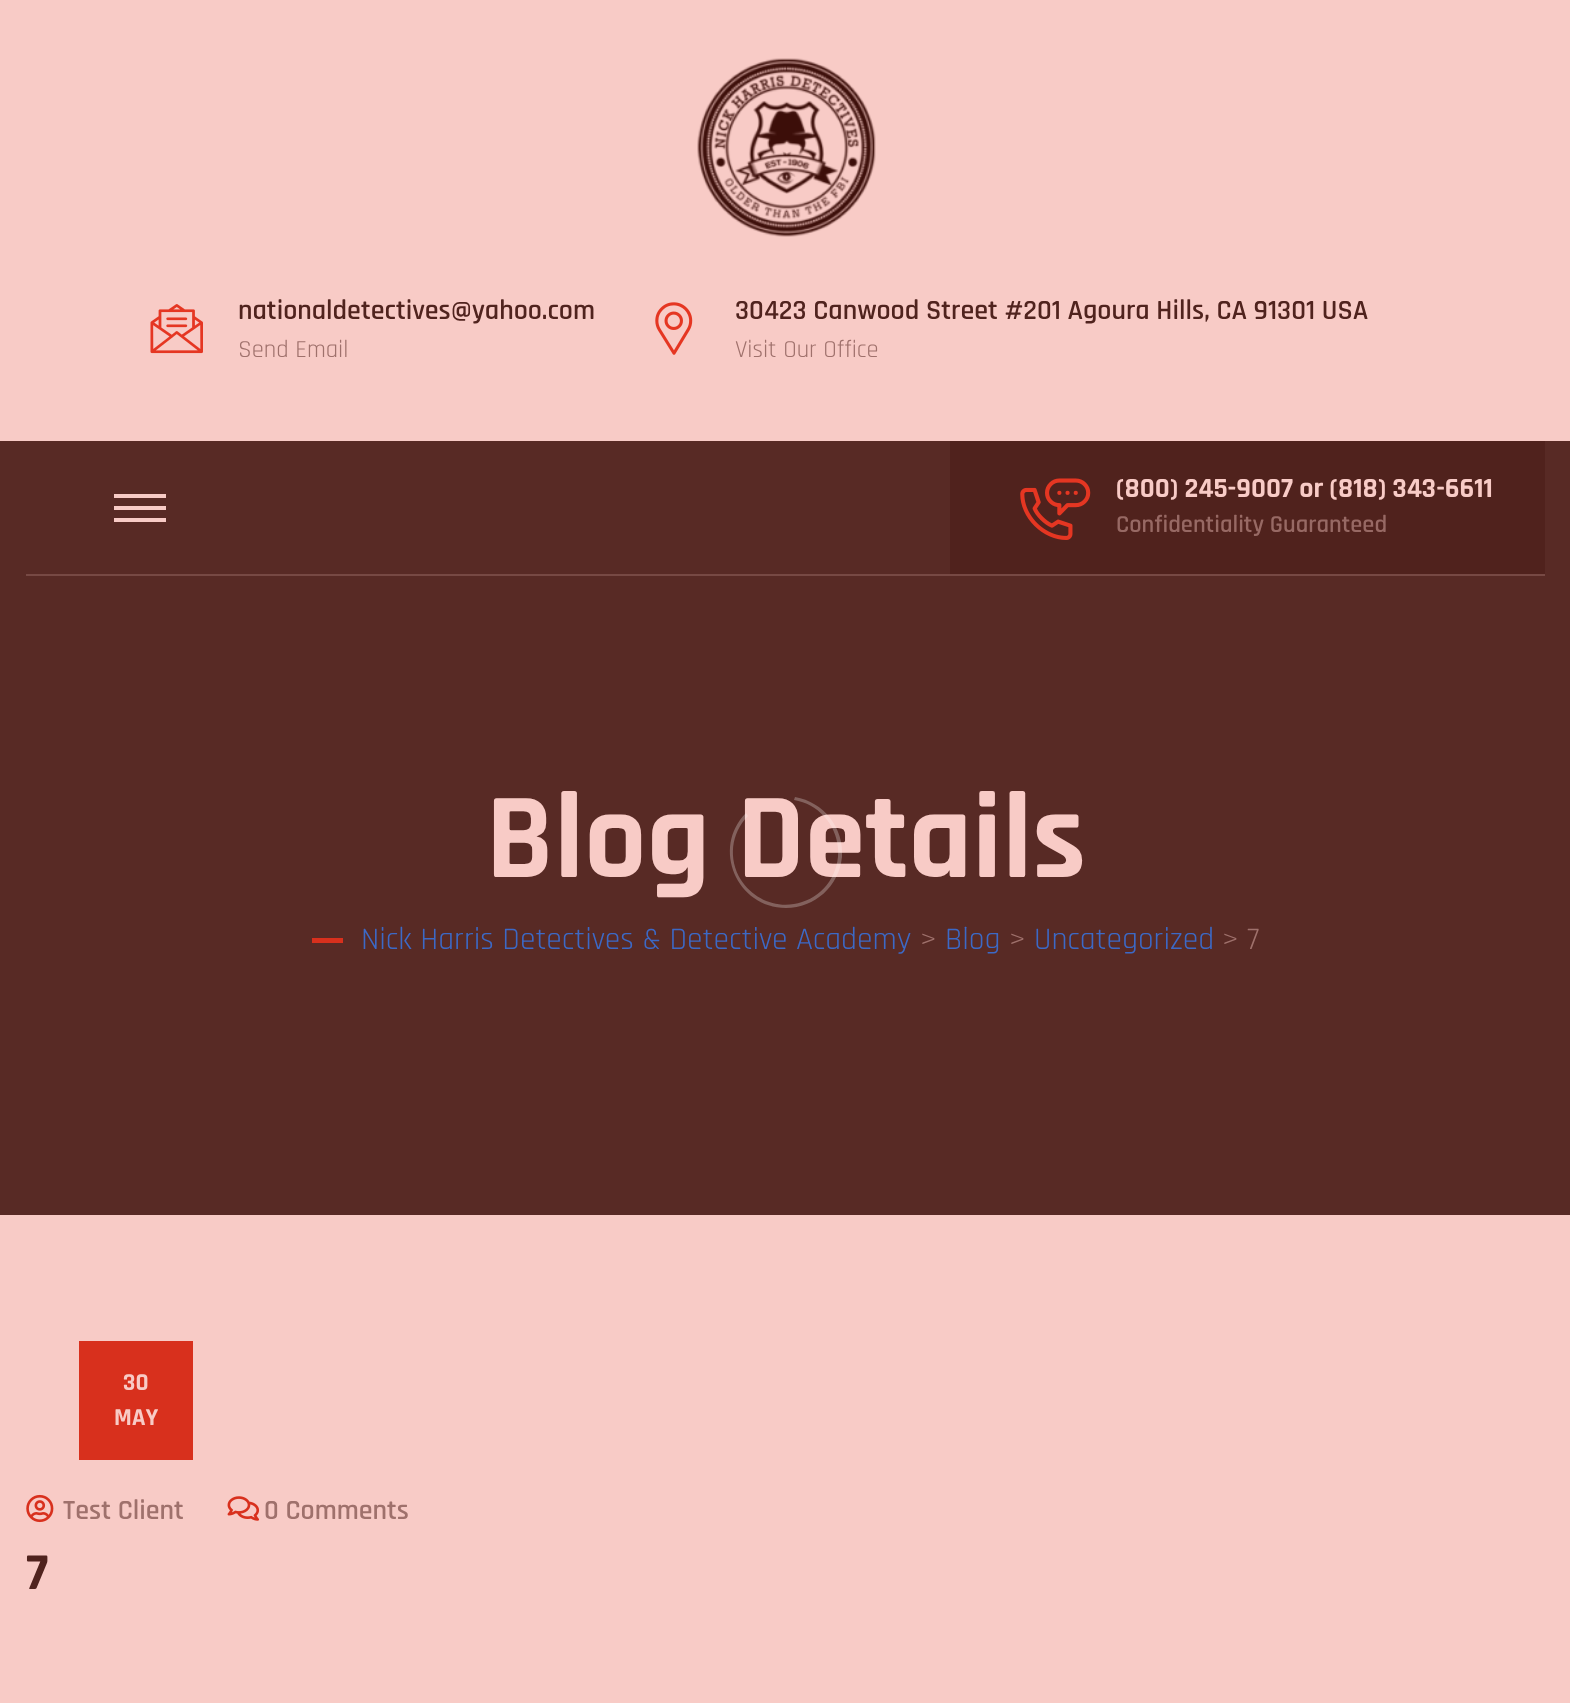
async function draw(canvas) {
  canvas.width = 1570
  canvas.height = 1703
  const ctx = canvas.getContext('2d')
  ctx.miterLimit = 4
  ctx.fontKerning = 'normal'
  async function loadImage(src) {
    const img = new Image()
    img.src = src
    await img.decode()
    return img
  }

  ctx.fillStyle = '#f8cbc6'
  ctx.fillRect(0, 0, 1570, 1703)
  ctx.drawImage(await loadImage('image0.png'), 697, 58, 179, 179)
  ctx.drawImage(await loadImage('image1.png'), 150, 304, 53, 50)
  ctx.font = '600 28px Rajdhani'
  ctx.fillStyle = '#50231e'
  ctx.fillText('nationaldetectives@yahoo.com', 238, 319)
  ctx.font = '24.5px Rajdhani'
  ctx.fillStyle = '#9f716c'
  ctx.fillText('Send Email', 238, 357)
  ctx.drawImage(await loadImage('image2.png'), 655, 302, 38, 53)
  ctx.font = '600 28px Rajdhani'
  ctx.fillStyle = '#50231e'
  ctx.fillText('30423 Canwood Street #201 Agoura Hills, CA 91301 USA', 735, 319)
  ctx.font = '24.5px Rajdhani'
  ctx.fillStyle = '#9f716c'
  ctx.fillText('Visit Our Office', 735, 357)
  ctx.fillStyle = '#582a25'
  ctx.fillRect(0, 441, 1570, 774)
  ctx.fillStyle = '#774944'
  ctx.fillRect(26, 574, 1519, 2)
  ctx.fillStyle = '#f8cbc6'
  ctx.fillRect(114, 494, 52, 4)
  ctx.fillRect(114, 506, 52, 4)
  ctx.fillRect(114, 518, 52, 4)
  ctx.fillStyle = '#50221d'
  ctx.fillRect(950, 441, 595, 133)
  ctx.drawImage(await loadImage('image3.png'), 1020, 478, 71, 62)
  ctx.font = 'bold 28px Rajdhani'
  ctx.fillStyle = '#f8cbc6'
  ctx.fillText('(800) 245-9007 or (818) 343-6611', 1116, 497)
  ctx.font = '600 24.5px Rajdhani'
  ctx.fillStyle = '#976964'
  ctx.fillText('Confidentiality Guaranteed', 1116, 532)
  ctx.font = 'bold 122.5px Rajdhani'
  ctx.fillStyle = '#f8cbc6'
  ctx.fillText('Blog Details', 486, 877)
  ctx.fillStyle = '#d8301d'
  ctx.fillRect(312, 938, 31, 5)
  ctx.font = '31.5px Rajdhani'
  ctx.fillStyle = '#3c69c6'
  ctx.fillText('Nick Harris Detectives & Detective Academy', 361, 949)
  ctx.fillStyle = '#9f716c'
  ctx.fillText('>', 920, 949)
  ctx.fillStyle = '#3c69c6'
  ctx.fillText('Blog', 945, 949)
  ctx.fillStyle = '#9f716c'
  ctx.fillText('>', 1009, 949)
  ctx.fillStyle = '#3c69c6'
  ctx.fillText('Uncategorized', 1034, 949)
  ctx.fillStyle = '#9f716c'
  ctx.fillText('> 7', 1222, 949)
  ctx.fillStyle = '#ffffff42'
  ctx.beginPath()
  ctx.moveTo(786, 908)
  ctx.bezierCurveTo(737, 908, 711, 848, 746, 813)
  ctx.lineTo(748, 816)
  ctx.bezierCurveTo(731, 833, 728, 859, 741, 880)
  ctx.bezierCurveTo(754, 900, 779, 910, 802, 902)
  ctx.bezierCurveTo(825, 895, 840, 872, 838, 848)
  ctx.bezierCurveTo(836, 824, 818, 804, 794, 800)
  ctx.lineTo(795, 797)
  ctx.bezierCurveTo(824, 802, 844, 828, 842, 857)
  ctx.bezierCurveTo(839, 886, 815, 908, 786, 908)
  ctx.closePath()
  ctx.fill()
  ctx.fillStyle = '#d8301d'
  ctx.fillRect(79, 1341, 114, 119)
  ctx.font = 'bold 24.5px Rajdhani'
  ctx.fillStyle = '#f8cbc6'
  ctx.fillText('30', 123, 1390)
  ctx.fillText('MAY', 114, 1425)
  ctx.drawImage(await loadImage('image4.png'), 26, 1494, 28, 29)
  ctx.font = '600 28px Rajdhani'
  ctx.fillStyle = '#9f716c'
  ctx.fillText('Test Client', 63, 1519)
  ctx.drawImage(await loadImage('image5.png'), 227, 1496, 33, 25)
  ctx.fillText('0 Comments', 264, 1519)
  ctx.font = 'bold 52px Rajdhani'
  ctx.fillStyle = '#50231e'
  ctx.fillText('7', 26, 1589)
}

draw(document.querySelector('canvas'))
